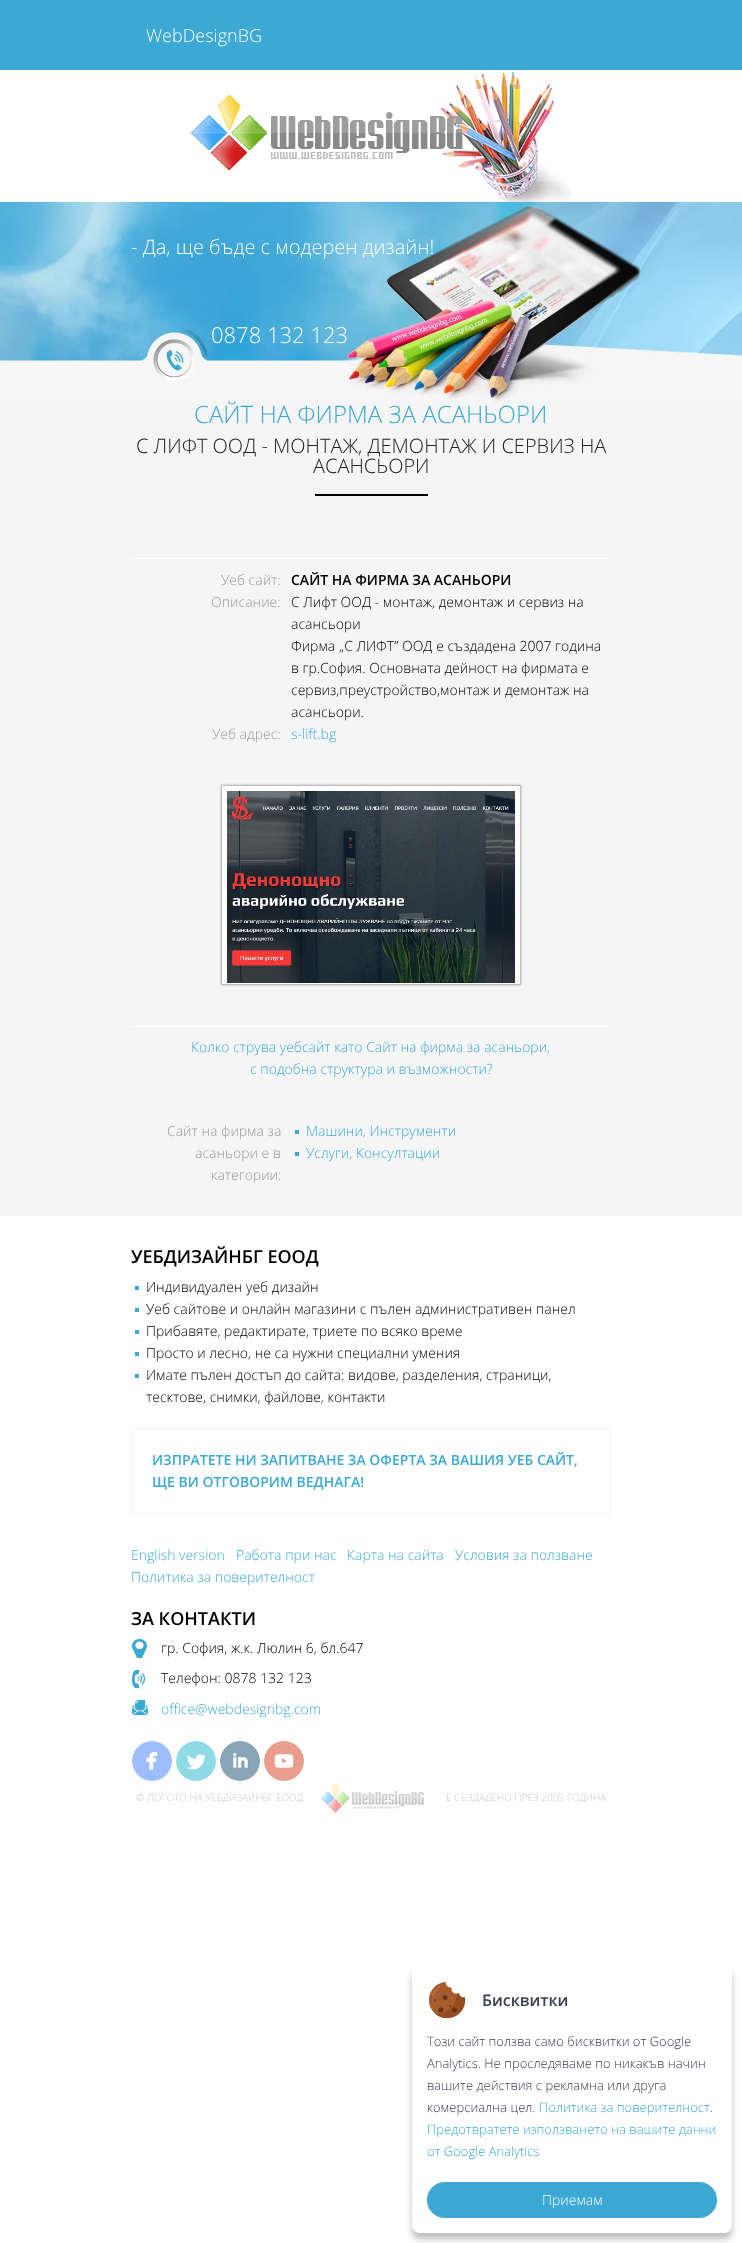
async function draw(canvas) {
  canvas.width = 742
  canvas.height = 2243
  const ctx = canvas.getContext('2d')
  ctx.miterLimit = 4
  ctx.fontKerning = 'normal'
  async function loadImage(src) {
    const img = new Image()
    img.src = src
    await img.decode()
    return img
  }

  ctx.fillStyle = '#fff'
  ctx.fillRect(0, 0, 742, 2243)
  ctx.fillStyle = '#3ca9d4'
  ctx.fillRect(0, 0, 742, 70)
  ctx.font = '300 18px Open Sans'
  ctx.fillStyle = '#fff'
  ctx.fillText('WebDesignBG', 146, 42)
  ctx.drawImage(await loadImage('image0.png'), 191, 72, 380, 130)
  ctx.drawImage(await loadImage('image1.png'), 0, 202, 742, 200)
  ctx.font = '300 20px Open Sans'
  ctx.fillText('- Да, ще бъде с модерен дизайн!', 131, 254)
  ctx.font = '300 22px Open Sans'
  ctx.fillText('0878 132 123', 211, 343)
  ctx.fillStyle = '#f5f5f5'
  ctx.fillRect(0, 402, 742, 814)
  ctx.fillStyle = '#000'
  ctx.fillRect(315, 494, 113, 2)
  ctx.font = '300 24px Open Sans'
  ctx.fillStyle = '#3ca9d4'
  ctx.fillText('САЙТ НА ФИРМА ЗА АСАНЬОРИ', 194, 423)
  ctx.font = '300 20px Open Sans'
  ctx.fillStyle = '#222'
  ctx.fillText('С ЛИФТ ООД - МОНТАЖ, ДЕМОНТАЖ И СЕРВИЗ НА', 136, 453)
  ctx.fillText('АСАНСЬОРИ', 313, 473)
  ctx.fillStyle = '#fff'
  ctx.fillRect(131, 558, 480, 1)
  ctx.font = '300 14px Open Sans'
  ctx.fillStyle = '#999'
  ctx.fillText('Уеб сайт:', 221, 585)
  ctx.font = '600 14px Open Sans'
  ctx.fillStyle = '#000'
  ctx.fillText('САЙТ НА ФИРМА ЗА АСАНЬОРИ', 291, 585)
  ctx.font = '300 14px Open Sans'
  ctx.fillStyle = '#999'
  ctx.fillText('Описание:', 211, 607)
  ctx.fillStyle = '#000'
  ctx.fillText('С Лифт ООД - монтаж, демонтаж и сервиз на', 291, 607)
  ctx.fillText('асансьори', 291, 629)
  ctx.fillText('Фирма „С ЛИФТ” ООД е създадена 2007 година', 291, 651)
  ctx.fillText('в гр.София. Основната дейност на фирмата е', 291, 673)
  ctx.fillText('сервиз,преустройство,монтаж и демонтаж на', 291, 695)
  ctx.fillText('асансьори.', 291, 717)
  ctx.fillStyle = '#999'
  ctx.fillText('Уеб адрес:', 212, 739)
  ctx.fillStyle = '#3ca9d4'
  ctx.fillText('s-lift.bg', 291, 739)
  ctx.fillStyle = '#0000004d'
  ctx.filter = 'blur(1px)'
  ctx.beginPath()
  ctx.rect(221, 785, 300, 200)
  ctx.fill()
  ctx.filter = 'none'
  ctx.fillStyle = '#fff'
  ctx.beginPath()
  ctx.rect(221.5, 785.5, 299, 199)
  ctx.fill()
  ctx.strokeStyle = '#bebebe'
  ctx.stroke()
  ctx.drawImage(await loadImage('image2.png'), 227, 791, 288, 192)
  ctx.fillRect(131, 1026, 480, 1)
  ctx.fillStyle = '#3ca9d4'
  ctx.fillText('Колко струва уебсайт като Сайт на фирма за асаньори,', 191, 1052)
  ctx.fillText('с подобна структура и възможности?', 250, 1074)
  ctx.fillStyle = '#999'
  ctx.fillText('Сайт на фирма за', 167, 1136)
  ctx.fillText('асаньори е в', 195, 1158)
  ctx.fillText('категории:', 211, 1180)
  ctx.fillStyle = '#3ca9d4'
  ctx.fillRect(295, 1130, 4, 4)
  ctx.fillText('Машини, Инструменти', 306, 1136)
  ctx.fillRect(295, 1152, 4, 4)
  ctx.fillText('Услуги, Консултации', 306, 1158)
  ctx.font = '600 18px Open Sans'
  ctx.fillStyle = '#000'
  ctx.fillText('УЕБДИЗАЙНБГ ЕООД', 131, 1263)
  ctx.fillStyle = '#3ca9d4'
  ctx.fillRect(135, 1286, 4, 4)
  ctx.font = '300 14px Open Sans'
  ctx.fillStyle = '#000'
  ctx.fillText('Индивидуален уеб дизайн', 146, 1292)
  ctx.fillStyle = '#3ca9d4'
  ctx.fillRect(135, 1308, 4, 4)
  ctx.fillStyle = '#000'
  ctx.fillText('Уеб сайтове и онлайн магазини с пълен административен панел', 146, 1314)
  ctx.fillStyle = '#3ca9d4'
  ctx.fillRect(135, 1330, 4, 4)
  ctx.fillStyle = '#000'
  ctx.fillText('Прибавяте, редактирате, триете по всяко време', 146, 1336)
  ctx.fillStyle = '#3ca9d4'
  ctx.fillRect(135, 1352, 4, 4)
  ctx.fillStyle = '#000'
  ctx.fillText('Просто и лесно, не са нужни специални умения', 146, 1358)
  ctx.fillStyle = '#3ca9d4'
  ctx.fillRect(135, 1374, 4, 4)
  ctx.fillStyle = '#000'
  ctx.fillText('Имате пълен достъп до сайта: видове, разделения, страници,', 146, 1380)
  ctx.fillText('тесктове, снимки, файлове, контакти', 146, 1402)
  ctx.strokeStyle = '#f5f5f5'
  ctx.strokeRect(131.5, 1428.5, 479, 85)
  ctx.font = '600 14px Open Sans'
  ctx.fillStyle = '#3ca9d4'
  ctx.fillText('ИЗПРАТЕТЕ НИ ЗАПИТВАНЕ ЗА ОФЕРТА ЗА ВАШИЯ УЕБ САЙТ,', 152, 1465)
  ctx.fillText('ЩЕ ВИ ОТГОВОРИМ ВЕДНАГА!', 152, 1487)
  ctx.font = '300 14px Open Sans'
  ctx.fillText('English version', 131, 1560)
  ctx.fillText('Работа при нас', 236, 1560)
  ctx.fillText('Карта на сайта', 347, 1560)
  ctx.fillText('Условия за ползване', 455, 1560)
  ctx.fillText('Политика за поверителност', 131, 1582)
  ctx.font = '600 18px Open Sans'
  ctx.fillStyle = '#000'
  ctx.fillText('ЗА КОНТАКТИ', 131, 1625)
  ctx.drawImage(await loadImage('image3.png'), 132, 1639, 15, 19)
  ctx.font = '300 14px Open Sans'
  ctx.fillText('гр. София, ж.к. Люлин 6, бл.647', 161, 1653)
  ctx.drawImage(await loadImage('image4.png'), 132, 1670, 13, 18)
  ctx.fillText('Телефон: 0878 132 123', 161, 1683)
  ctx.drawImage(await loadImage('image5.png'), 132, 1700, 16, 15)
  ctx.fillStyle = '#3ca9d4'
  ctx.fillText('office@webdesignbg.com', 161, 1714)
  ctx.drawImage(await loadImage('image6.png'), 132, 1741, 40, 40)
  ctx.drawImage(await loadImage('image7.png'), 176, 1741, 40, 40)
  ctx.drawImage(await loadImage('image8.png'), 220, 1741, 40, 40)
  ctx.drawImage(await loadImage('image9.png'), 264, 1741, 40, 40)
  ctx.font = '300 10px Open Sans'
  ctx.fillStyle = '#ccc'
  ctx.fillText('© ЛОГОТО НА УЕБДИЗАЙНБГ ЕООД', 136, 1801)
  ctx.drawImage(await loadImage('image10.png'), 321, 1784, 103, 29)
  ctx.fillText('Е СЪЗДАДЕНО ПРЕЗ 2005 ГОДИНА', 446, 1801)
  ctx.fillStyle = '#00000040'
  ctx.filter = 'blur(3px)'
  ctx.beginPath()
  ctx.roundRect(412, 1971, 320, 268, 8)
  ctx.fill()
  ctx.filter = 'none'
  ctx.fillStyle = '#fff'
  ctx.beginPath()
  ctx.roundRect(412, 1965, 320, 268, 8)
  ctx.fill()
  ctx.drawImage(await loadImage('image11.png'), 428, 1982, 38, 37)
  ctx.font = '600 16px Open Sans'
  ctx.fillStyle = '#393d4d'
  ctx.fillText('Бисквитки', 482, 2006)
  ctx.font = '300 13px Open Sans'
  ctx.fillText('Този сайт ползва само бисквитки от Google', 427, 2046)
  ctx.fillText('Analytics. Не проследяваме по никакъв начин', 427, 2068)
  ctx.fillText('вашите действия с рекламна или друга', 427, 2090)
  ctx.fillText('комерсиална цел.', 427, 2112)
  ctx.fillStyle = '#3ca9d4'
  ctx.fillText('Политика за поверителност', 539, 2112)
  ctx.fillStyle = '#393d4d'
  ctx.fillText('.', 710, 2112)
  ctx.fillStyle = '#3ca9d4'
  ctx.fillText('Предотвратете използването на вашите данни', 427, 2134)
  ctx.fillText('от Google Analytics', 427, 2156)
  ctx.beginPath()
  ctx.roundRect(427, 2182, 290, 36, 18)
  ctx.fill()
  ctx.font = '300 14px Open Sans'
  ctx.fillStyle = '#fff'
  ctx.fillText('Приемам', 542, 2205)
}

draw(document.querySelector('canvas'))
